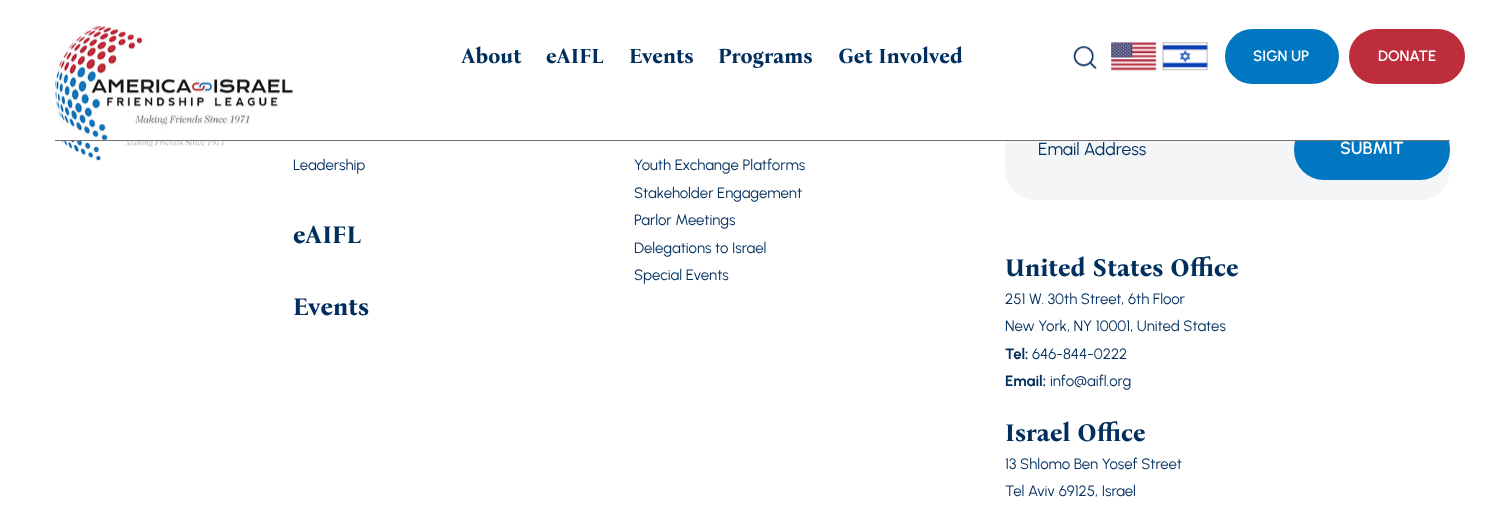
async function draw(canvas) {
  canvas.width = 1504
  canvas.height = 518
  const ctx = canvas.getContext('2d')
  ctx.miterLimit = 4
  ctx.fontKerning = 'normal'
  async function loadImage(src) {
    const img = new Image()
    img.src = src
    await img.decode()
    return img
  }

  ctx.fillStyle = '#fff'
  ctx.fillRect(0, 0, 1504, 518)
  ctx.fillStyle = '#f4f5f7'
  ctx.beginPath()
  ctx.roundRect(1005, 119, 445, 81, 30)
  ctx.fill()
  ctx.fillStyle = '#0177c1'
  ctx.beginPath()
  ctx.roundRect(1294, 119, 156, 61, 30)
  ctx.fill()
  ctx.fillStyle = '#fff'
  ctx.fillRect(1006, 119, 443, 22)
  ctx.drawImage(await loadImage('image0.png'), 55, 26, 238, 114)
  ctx.font = 'bold 21.25px Bona Nova'
  ctx.fillStyle = '#002e5d'
  ctx.fillText('About', 461, 63)
  ctx.fillText('eAIFL', 546, 63)
  ctx.fillText('Events', 629, 63)
  ctx.fillText('Programs', 718, 63)
  ctx.fillText('Get Involved', 838, 63)
  ctx.drawImage(await loadImage('image1.png'), 1073, 46, 24, 24)
  ctx.drawImage(await loadImage('image2.png'), 1111, 42, 97, 29)
  ctx.fillStyle = '#0177c1'
  ctx.beginPath()
  ctx.roundRect(1227, 31, 110, 51, 25.5)
  ctx.fill()
  ctx.strokeStyle = '#0177c1'
  ctx.lineWidth = 4
  ctx.stroke()
  ctx.font = '600 15px Urbanist'
  ctx.fillStyle = '#fff'
  ctx.fillText('SIGN UP', 1253, 61)
  ctx.fillStyle = '#be2d3c'
  ctx.beginPath()
  ctx.roundRect(1351, 31, 112, 51, 25.5)
  ctx.fill()
  ctx.strokeStyle = '#be2d3c'
  ctx.stroke()
  ctx.fillStyle = '#fff'
  ctx.fillText('DONATE', 1378, 61)
  ctx.fillStyle = '#727272'
  ctx.fillRect(55, 140, 1395, 1)
  ctx.drawImage(await loadImage('image3.png'), 61, 141, 163, 20)
  ctx.font = '15px Urbanist'
  ctx.fillStyle = '#002e5d'
  ctx.fillText('Leadership', 293, 170)
  ctx.font = 'bold 25px Bona Nova'
  ctx.fillText('eAIFL', 293, 243)
  ctx.fillText('Events', 293, 315)
  ctx.font = '15px Urbanist'
  ctx.fillText('Youth Exchange Platforms', 634, 170)
  ctx.fillText('Stakeholder Engagement', 634, 198)
  ctx.fillText('Parlor Meetings', 634, 225)
  ctx.fillText('Delegations to Israel', 634, 253)
  ctx.fillText('Special Events', 634, 280)
  ctx.font = '17.5px Urbanist'
  ctx.fillStyle = '#003367'
  ctx.fillText('Email Address', 1038, 155)
  ctx.font = '600 17.5px Urbanist'
  ctx.fillStyle = '#fff'
  ctx.fillText('SUBMIT', 1340, 154)
  ctx.font = 'bold 25px Bona Nova'
  ctx.fillStyle = '#002e5d'
  ctx.fillText('United States Office', 1005, 276)
  ctx.font = '15px Urbanist'
  ctx.fillText('251 W. 30th Street, 6th Floor', 1005, 304)
  ctx.fillText('New York, NY 10001, United States', 1005, 331)
  ctx.font = 'bold 15px Urbanist'
  ctx.fillText('Tel:', 1005, 359)
  ctx.font = '15px Urbanist'
  ctx.fillText('646-844-0222', 1032, 359)
  ctx.font = 'bold 15px Urbanist'
  ctx.fillText('Email:', 1005, 386)
  ctx.font = '15px Urbanist'
  ctx.fillText('info@aifl.org', 1050, 386)
  ctx.font = 'bold 25px Bona Nova'
  ctx.fillText('Israel Office', 1005, 441)
  ctx.font = '15px Urbanist'
  ctx.fillText('13 Shlomo Ben Yosef Street', 1005, 469)
  ctx.fillText('Tel Aviv 69125, Israel', 1005, 496)
}

draw(document.querySelector('canvas'))
